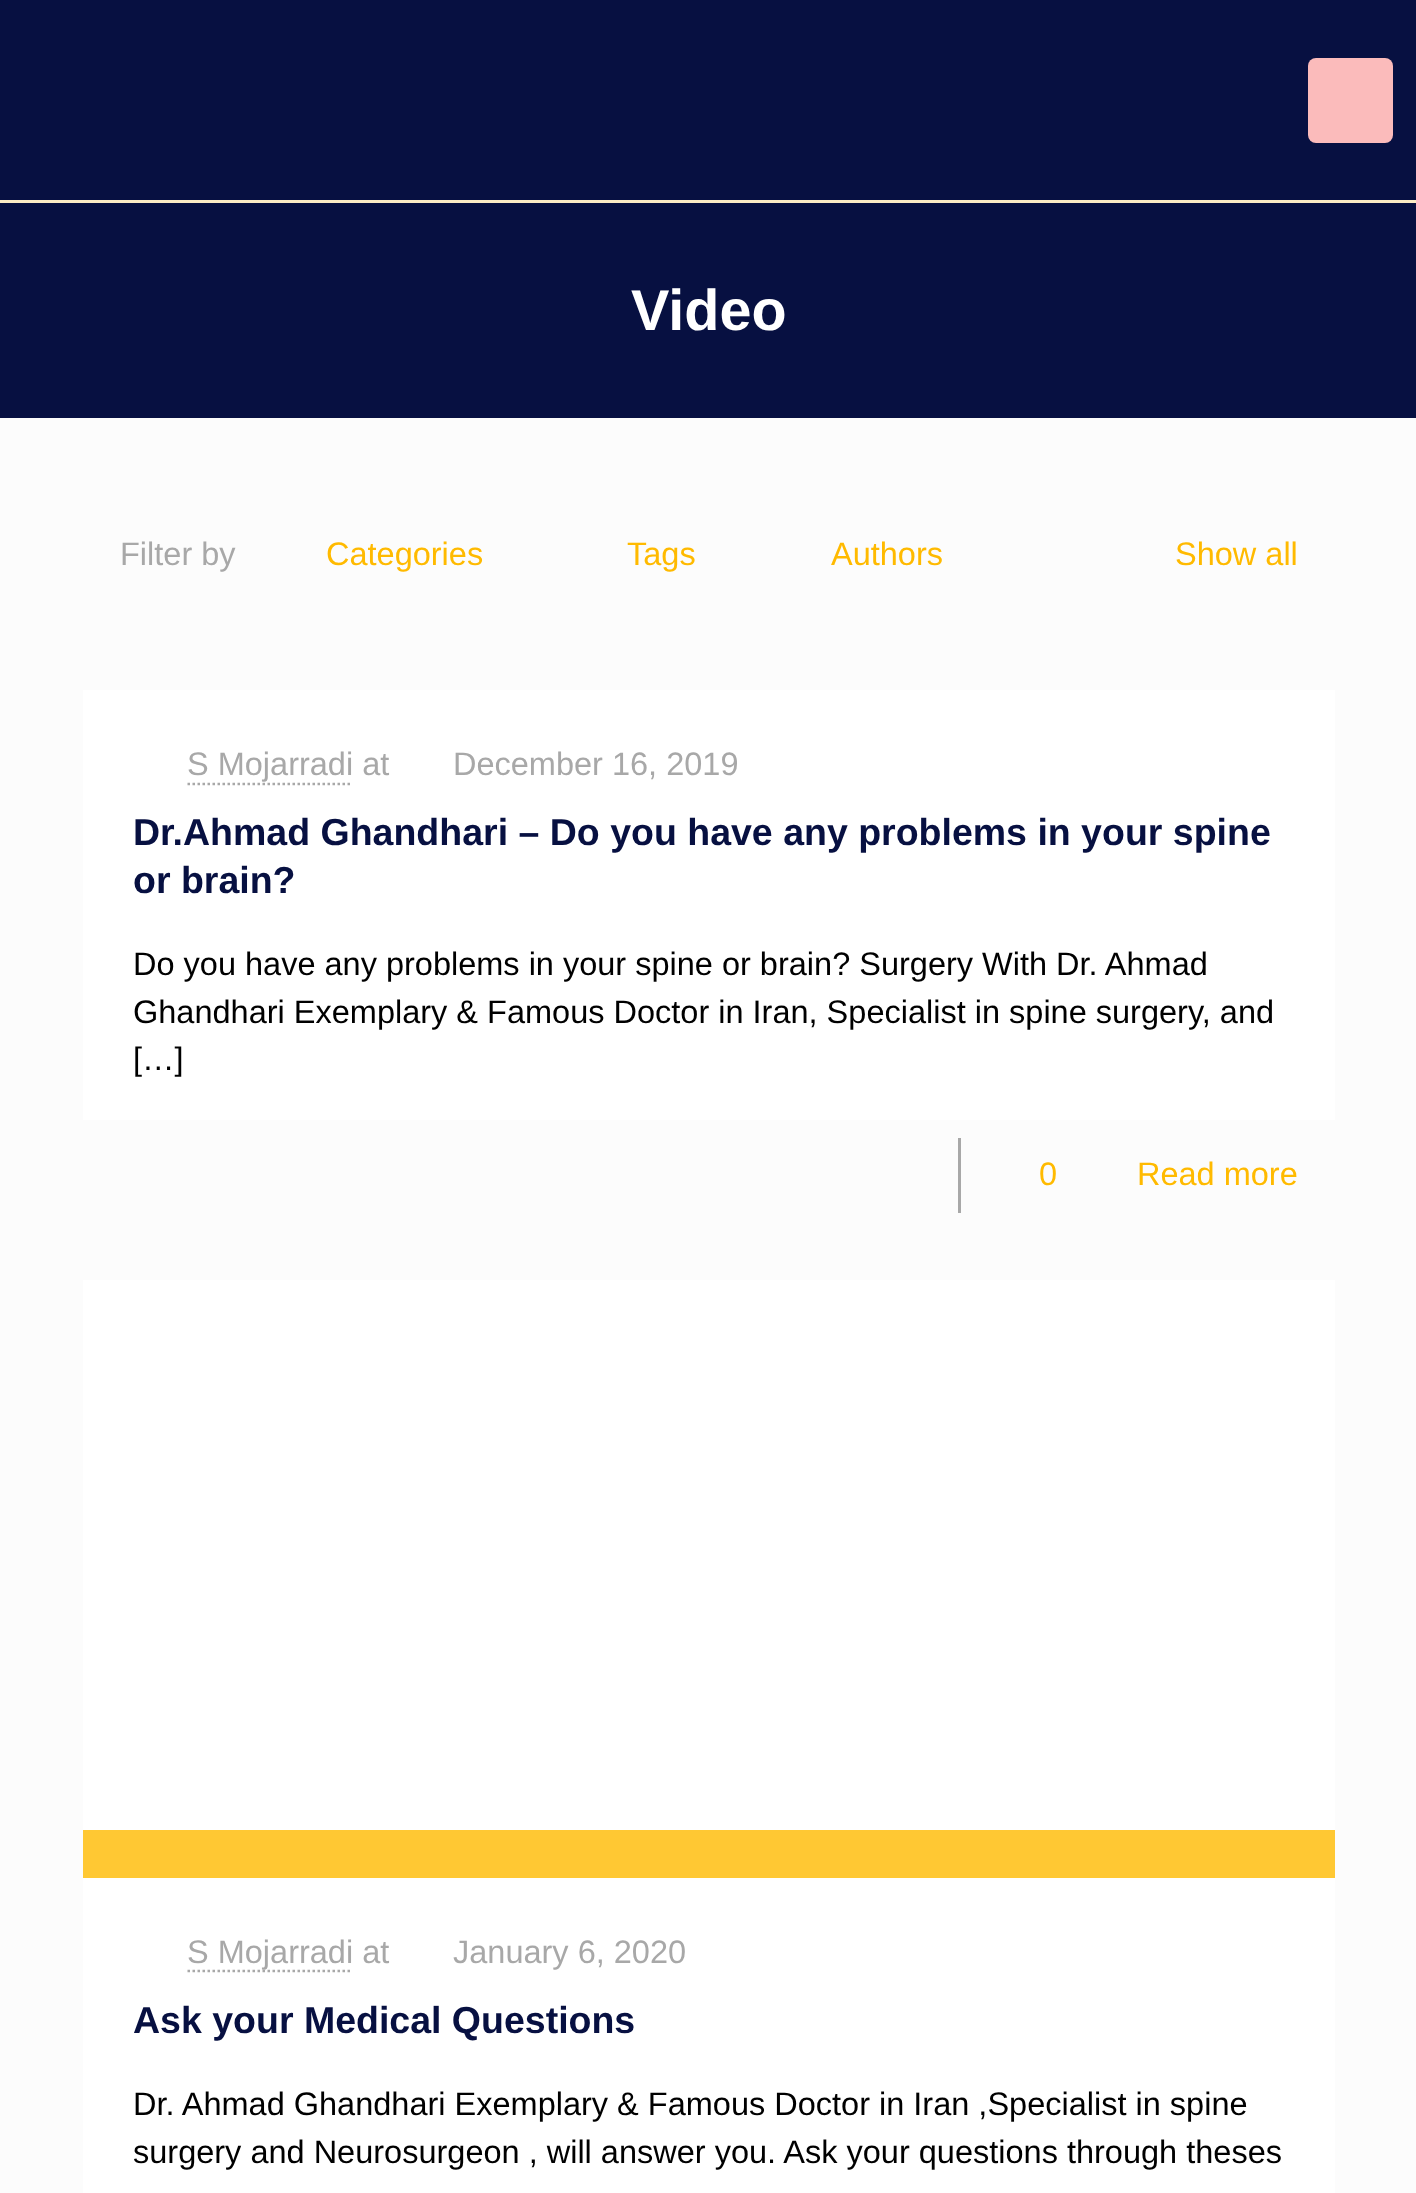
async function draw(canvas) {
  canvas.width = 1416
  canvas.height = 2193
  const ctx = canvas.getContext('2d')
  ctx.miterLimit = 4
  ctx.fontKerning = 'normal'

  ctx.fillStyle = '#fcfcfc'
  ctx.fillRect(0, 0, 1416, 2193)
  ctx.fillStyle = '#071041'
  ctx.fillRect(0, 0, 1416, 418)
  ctx.fillStyle = '#fbecc5'
  ctx.fillRect(0, 200, 1416, 3)
  ctx.fillStyle = '#fbbbbb'
  ctx.beginPath()
  ctx.roundRect(1308, 58, 85, 85, 8)
  ctx.fill()
  ctx.font = 'bold 57.5px Liberation Sans'
  ctx.fillStyle = '#fff'
  ctx.fillText('Video', 631, 330)
  ctx.font = '32.5px Liberation Sans'
  ctx.fillStyle = '#a8a8a8'
  ctx.fillText('Filter by', 120, 565)
  ctx.fillStyle = '#ffba00'
  ctx.fillText('Categories', 326, 565)
  ctx.fillText('Tags', 627, 565)
  ctx.fillText('Authors', 831, 565)
  ctx.fillText('Show all', 1175, 565)
  ctx.fillStyle = '#fff'
  ctx.fillRect(83, 690, 1252, 430)
  ctx.fillStyle = '#a8a8a8'
  ctx.fillText('S Mojarradi at', 187, 775)
  ctx.beginPath()
  ctx.moveTo(187.5, 784)
  ctx.lineTo(352.5, 784)
  ctx.strokeStyle = '#a8a8a8'
  ctx.lineWidth = 2.5
  ctx.setLineDash([2.5, 2.5])
  ctx.stroke()
  ctx.fillText('December 16, 2019', 453, 775)
  ctx.font = 'bold 37.5px Liberation Sans'
  ctx.fillStyle = '#071041'
  ctx.fillText('Dr.Ahmad Ghandhari – Do you have any problems in your spine', 133, 845)
  ctx.fillText('or brain?', 133, 893)
  ctx.font = '32.5px Liberation Sans'
  ctx.fillStyle = '#000'
  ctx.fillText('Do you have any problems in your spine or brain? Surgery With Dr. Ahmad', 133, 975)
  ctx.fillText('Ghandhari Exemplary & Famous Doctor in Iran, Specialist in spine surgery, and', 133, 1023)
  ctx.fillText('[…]', 133, 1070)
  ctx.fillStyle = '#a8a8a8'
  ctx.fillRect(958, 1138, 3, 75)
  ctx.fillStyle = '#ffba00'
  ctx.fillText('0', 1039, 1185)
  ctx.fillText('Read more', 1137, 1185)
  ctx.fillStyle = '#fff'
  ctx.fillRect(83, 1280, 1252, 913)
  ctx.fillStyle = '#ffc833'
  ctx.fillRect(83, 1830, 1252, 48)
  ctx.beginPath()
  ctx.moveTo(187.5, 1971)
  ctx.lineTo(352.5, 1971)
  ctx.stroke()
  ctx.fillStyle = '#a8a8a8'
  ctx.fillText('S Mojarradi at', 187, 1963)
  ctx.fillText('January 6, 2020', 453, 1963)
  ctx.font = 'bold 37.5px Liberation Sans'
  ctx.fillStyle = '#071041'
  ctx.fillText('Ask your Medical Questions', 133, 2033)
  ctx.font = '32.5px Liberation Sans'
  ctx.fillStyle = '#000'
  ctx.fillText('Dr. Ahmad Ghandhari Exemplary & Famous Doctor in Iran ,Specialist in spine', 133, 2115)
  ctx.fillText('surgery and Neurosurgeon , will answer you. Ask your questions through theses', 133, 2163)
}

draw(document.querySelector('canvas'))
